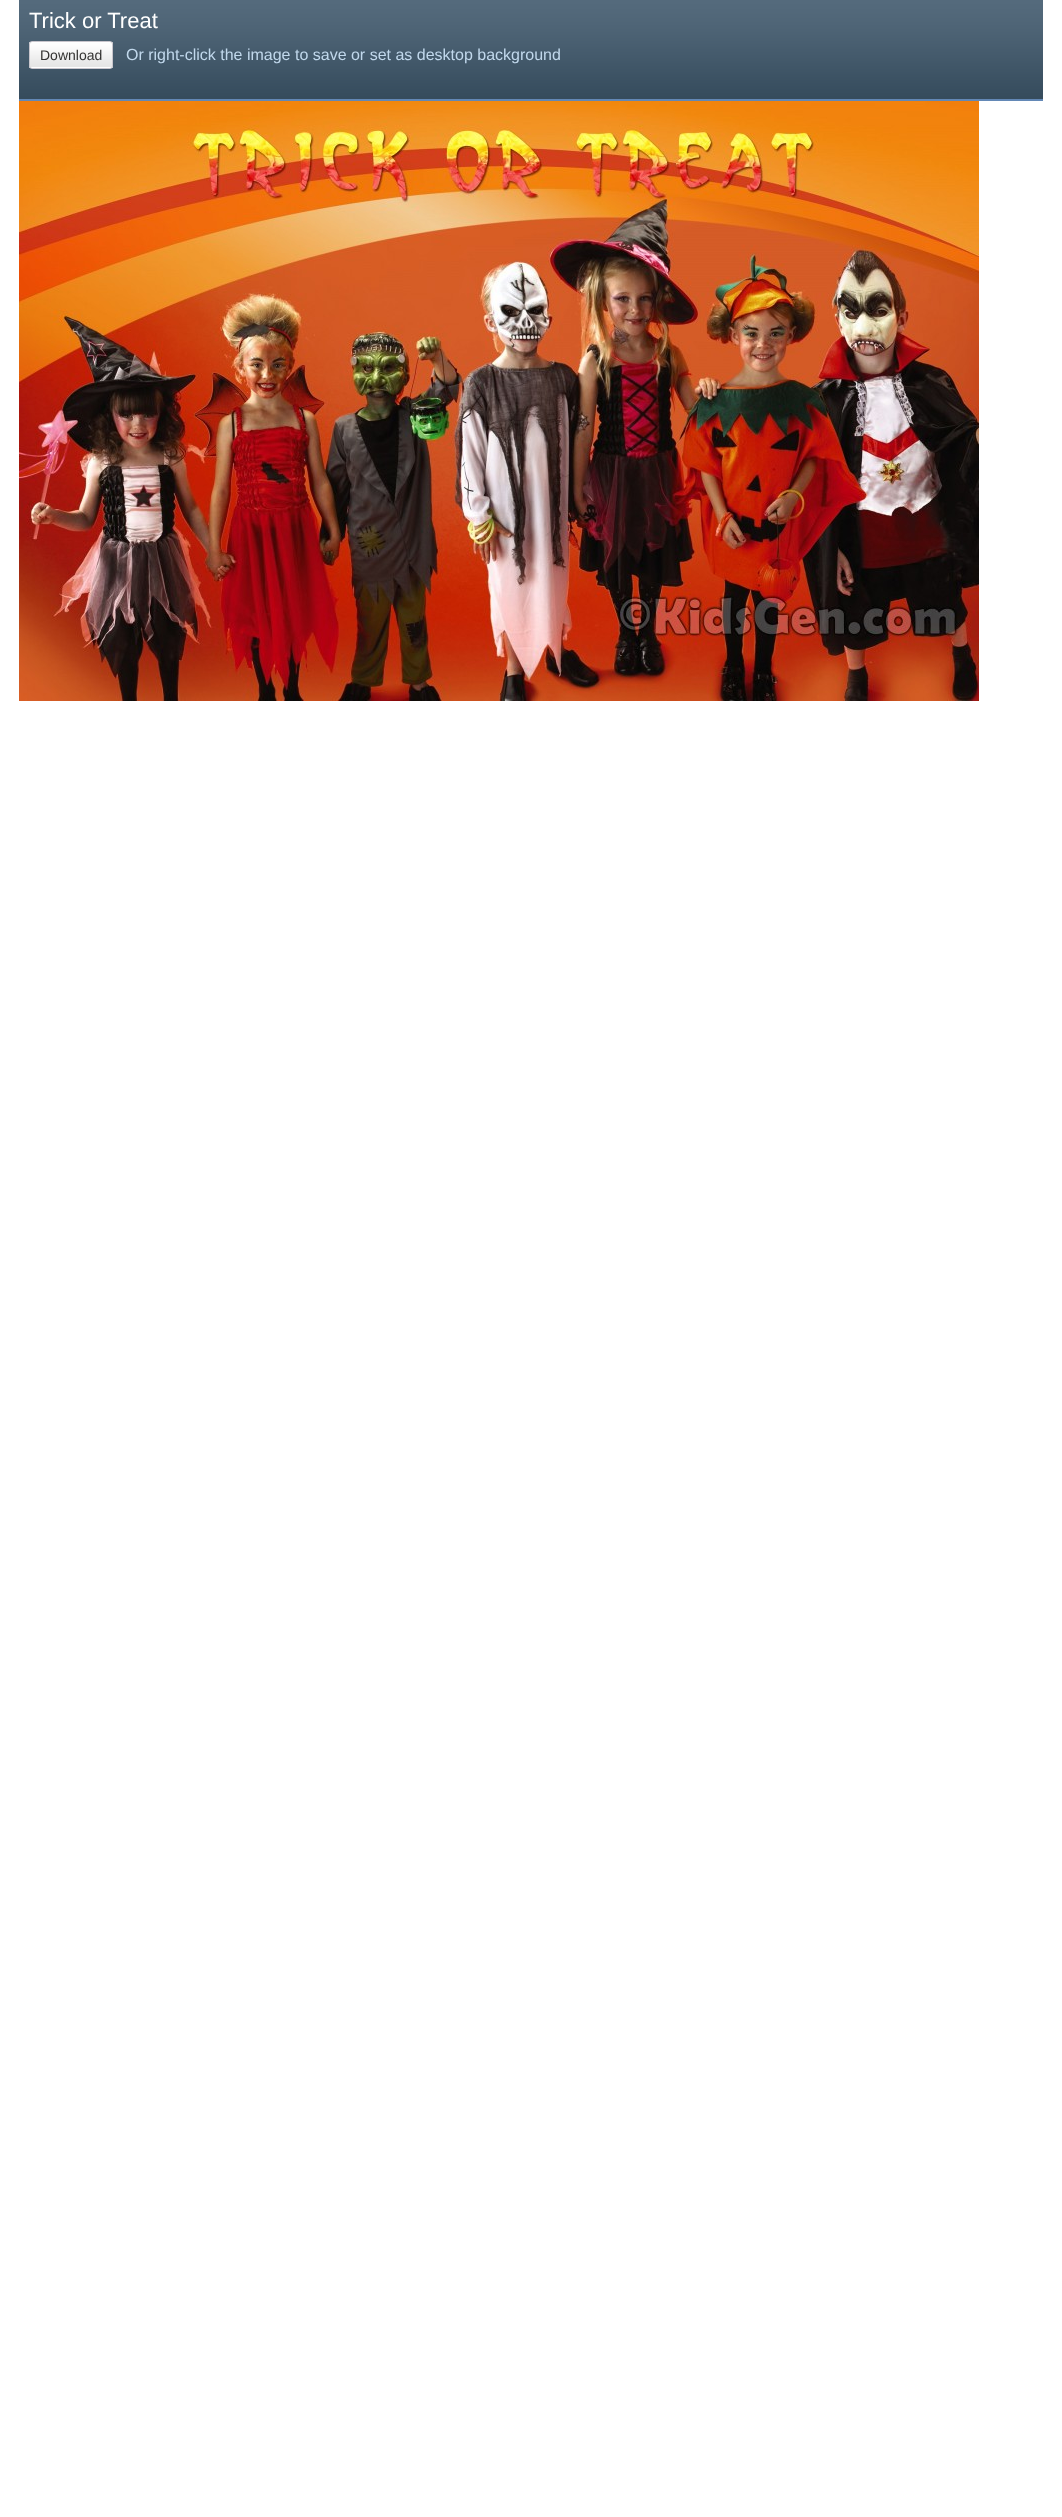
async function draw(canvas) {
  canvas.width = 1062
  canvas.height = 2517
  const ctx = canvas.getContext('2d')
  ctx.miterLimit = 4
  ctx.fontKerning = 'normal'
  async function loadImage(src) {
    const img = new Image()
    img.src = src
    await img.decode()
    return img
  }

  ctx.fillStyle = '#fff'
  ctx.fillRect(0, 0, 1062, 2517)
  ctx.drawImage(await loadImage('image0.png'), 19, 0, 1024, 99)
  ctx.fillStyle = '#6388b6'
  ctx.fillRect(19, 99, 1024, 2)
  ctx.font = '22px Liberation Sans'
  ctx.fillStyle = '#fff'
  ctx.fillText('Trick or Treat', 29, 28)
  ctx.drawImage(await loadImage('image1.png'), 29, 42, 84, 26)
  ctx.font = '16px Liberation Sans'
  ctx.fillStyle = '#c1d8ec'
  ctx.fillText('Or right-click the image to save or set as desktop background', 126, 60)
  ctx.beginPath()
  ctx.roundRect(29.5, 41.5, 83, 27, 2.5)
  ctx.strokeStyle = '#c8c5cc'
  ctx.stroke()
  ctx.font = '14px Liberation Sans'
  ctx.fillStyle = '#333231'
  ctx.fillText('Download', 40, 60)
  ctx.drawImage(await loadImage('image2.png'), 19, 101, 960, 600)
}

draw(document.querySelector('canvas'))
